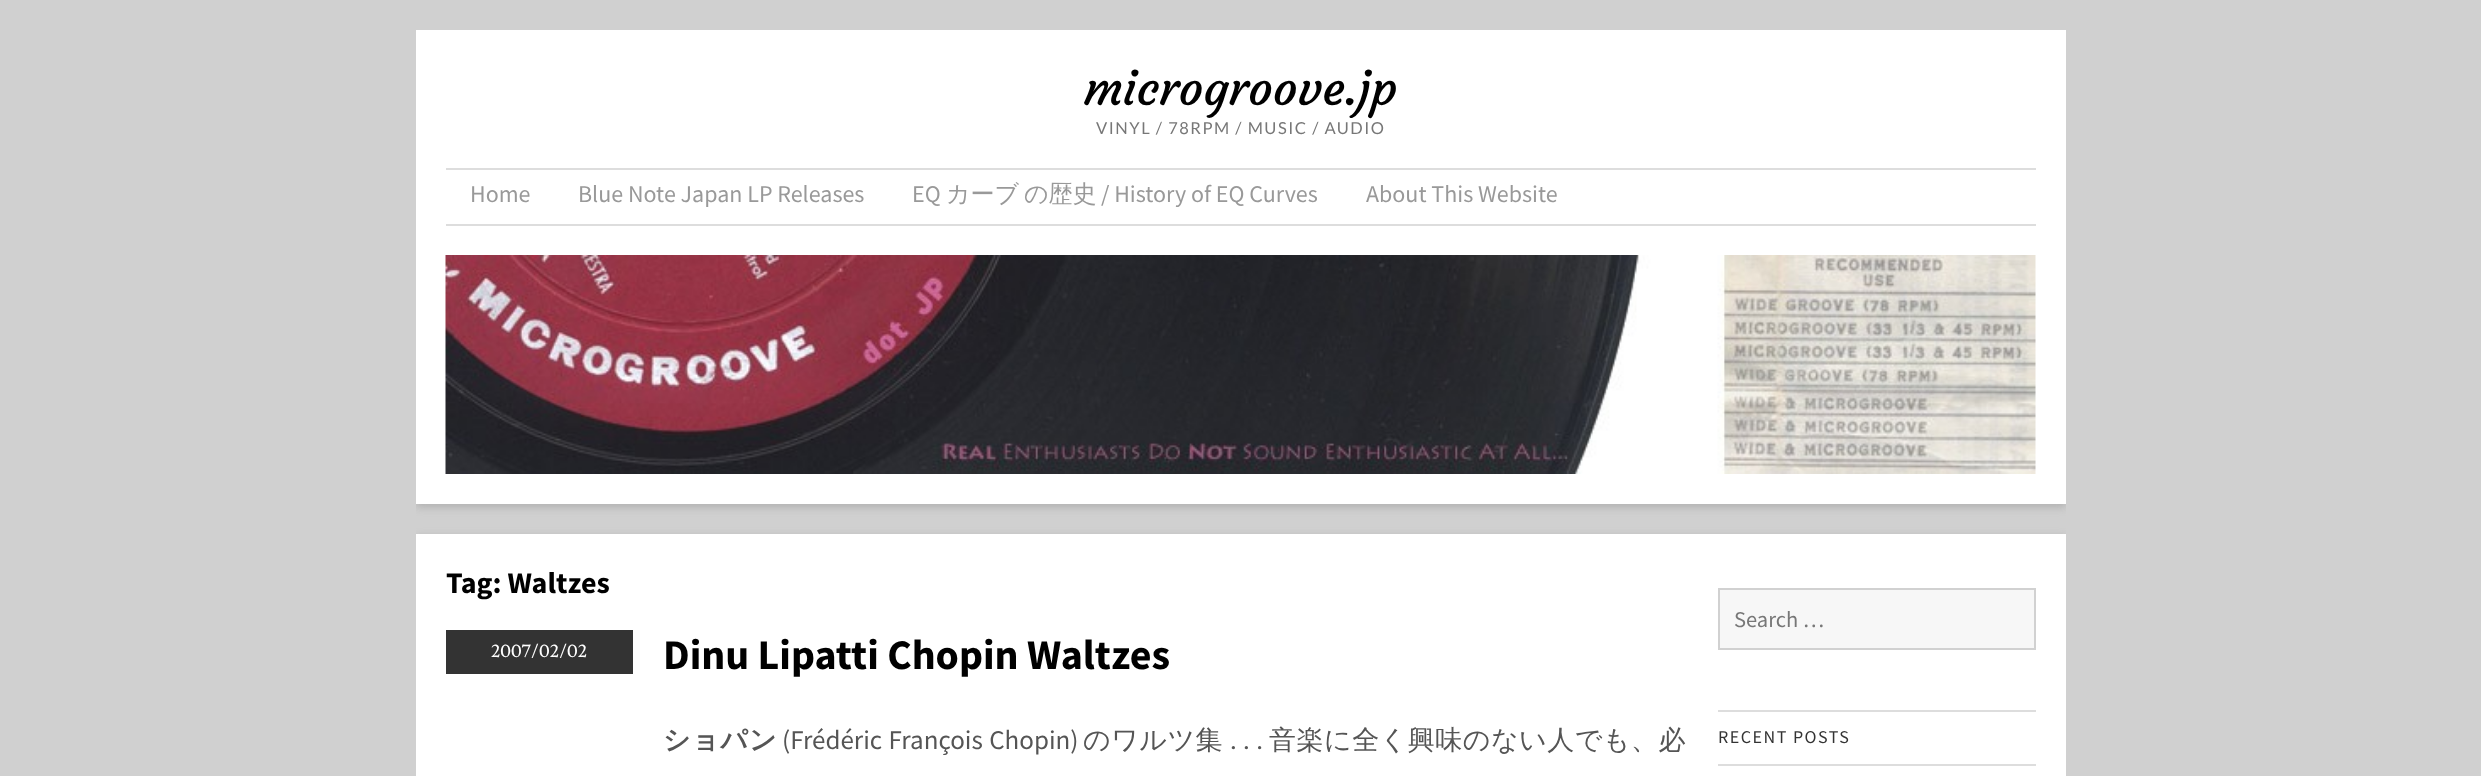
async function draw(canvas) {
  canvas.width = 2481
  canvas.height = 776
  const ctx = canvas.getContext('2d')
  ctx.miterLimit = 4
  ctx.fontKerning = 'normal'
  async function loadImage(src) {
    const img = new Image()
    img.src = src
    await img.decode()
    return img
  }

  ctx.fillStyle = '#d0d0d0'
  ctx.fillRect(0, 0, 2481, 776)
  ctx.save()
  ctx.beginPath()
  ctx.rect(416, 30, 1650, 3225)
  ctx.clip()
  ctx.fillStyle = '#6464644d'
  ctx.filter = 'blur(4.5px)'
  ctx.beginPath()
  ctx.rect(416, 33, 1650, 474)
  ctx.fill()
  ctx.filter = 'none'
  ctx.restore()
  ctx.fillStyle = '#fff'
  ctx.fillRect(416, 30, 1650, 474)
  ctx.font = '48px Courgette'
  ctx.fillStyle = '#000'
  ctx.fillText('microgroove.jp', 1084, 105)
  ctx.letterSpacing = '1.5px'
  ctx.font = '16.5px Lato'
  ctx.fillStyle = '#777'
  ctx.fillText('VINYL / 78RPM / MUSIC / AUDIO', 1096, 134)
  ctx.fillStyle = '#ddd'
  ctx.fillRect(446, 168, 1590, 2)
  ctx.fillRect(446, 224, 1590, 2)
  ctx.letterSpacing = '0px'
  ctx.font = '24px Source Sans Pro'
  ctx.fillStyle = '#999'
  ctx.fillText('Home', 470, 202)
  ctx.fillText('Blue Note Japan LP Releases', 578, 202)
  ctx.fillText('EQ', 912, 202)
  ctx.font = '500 24px WenQuanYi Zen Hei'
  ctx.fillText('カーブ', 946, 202)
  ctx.fillText('の歴史', 1024, 202)
  ctx.font = '24px Source Sans Pro'
  ctx.fillText('/ History of EQ Curves', 1101, 202)
  ctx.fillText('About This Website', 1366, 202)
  ctx.drawImage(await loadImage('image0.png'), 445, 255, 1591, 219)
  ctx.save()
  ctx.beginPath()
  ctx.rect(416, 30, 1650, 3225)
  ctx.clip()
  ctx.fillStyle = '#6464644d'
  ctx.filter = 'blur(4.5px)'
  ctx.beginPath()
  ctx.rect(416, 537, 1650, 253)
  ctx.fill()
  ctx.filter = 'none'
  ctx.restore()
  ctx.fillStyle = '#fff'
  ctx.fillRect(416, 534, 1650, 242)
  ctx.font = 'bold 30px Source Sans Pro'
  ctx.fillStyle = '#000'
  ctx.fillText('Tag: Waltzes', 446, 593)
  ctx.fillStyle = '#333'
  ctx.fillRect(446, 630, 187, 44)
  ctx.font = '18px Lusitana'
  ctx.fillStyle = '#fff'
  ctx.fillText('2007/02/02', 491, 657)
  ctx.font = 'bold 42px Source Sans Pro'
  ctx.fillStyle = '#000'
  ctx.fillText('Dinu Lipatti Chopin Waltzes', 663, 669)
  ctx.letterSpacing = '1px'
  ctx.font = 'bold 27px WenQuanYi Zen Hei'
  ctx.fillStyle = '#555'
  ctx.fillText('ショパン', 663, 749)
  ctx.letterSpacing = '0px'
  ctx.wordSpacing = '1px'
  ctx.font = '27px Source Sans Pro'
  ctx.fillText('(Frédéric François Chopin)', 782, 749)
  ctx.letterSpacing = '0.5px'
  ctx.wordSpacing = '0px'
  ctx.font = '500 27px WenQuanYi Zen Hei'
  ctx.fillText('のワルツ集', 1083, 749)
  ctx.font = '27px Source Sans Pro'
  ctx.fillText('. . .', 1230, 749)
  ctx.font = '500 27px WenQuanYi Zen Hei'
  ctx.fillText('音楽に全く興味のない人でも、必', 1269, 749)
  ctx.fillStyle = '#f7f7f7'
  ctx.beginPath()
  ctx.rect(1719, 589, 316, 60)
  ctx.fill()
  ctx.strokeStyle = '#d1d1d1'
  ctx.lineWidth = 2
  ctx.stroke()
  ctx.letterSpacing = '0px'
  ctx.font = '22.5px Source Sans Pro'
  ctx.fillStyle = '#777'
  ctx.fillText('Search …', 1734, 627)
  ctx.fillStyle = '#ddd'
  ctx.fillRect(1718, 710, 318, 2)
  ctx.fillRect(1718, 764, 318, 2)
  ctx.letterSpacing = '1.5px'
  ctx.font = '18px Source Sans Pro'
  ctx.fillStyle = '#333'
  ctx.fillText('RECENT POSTS', 1718, 743)
}

draw(document.querySelector('canvas'))
